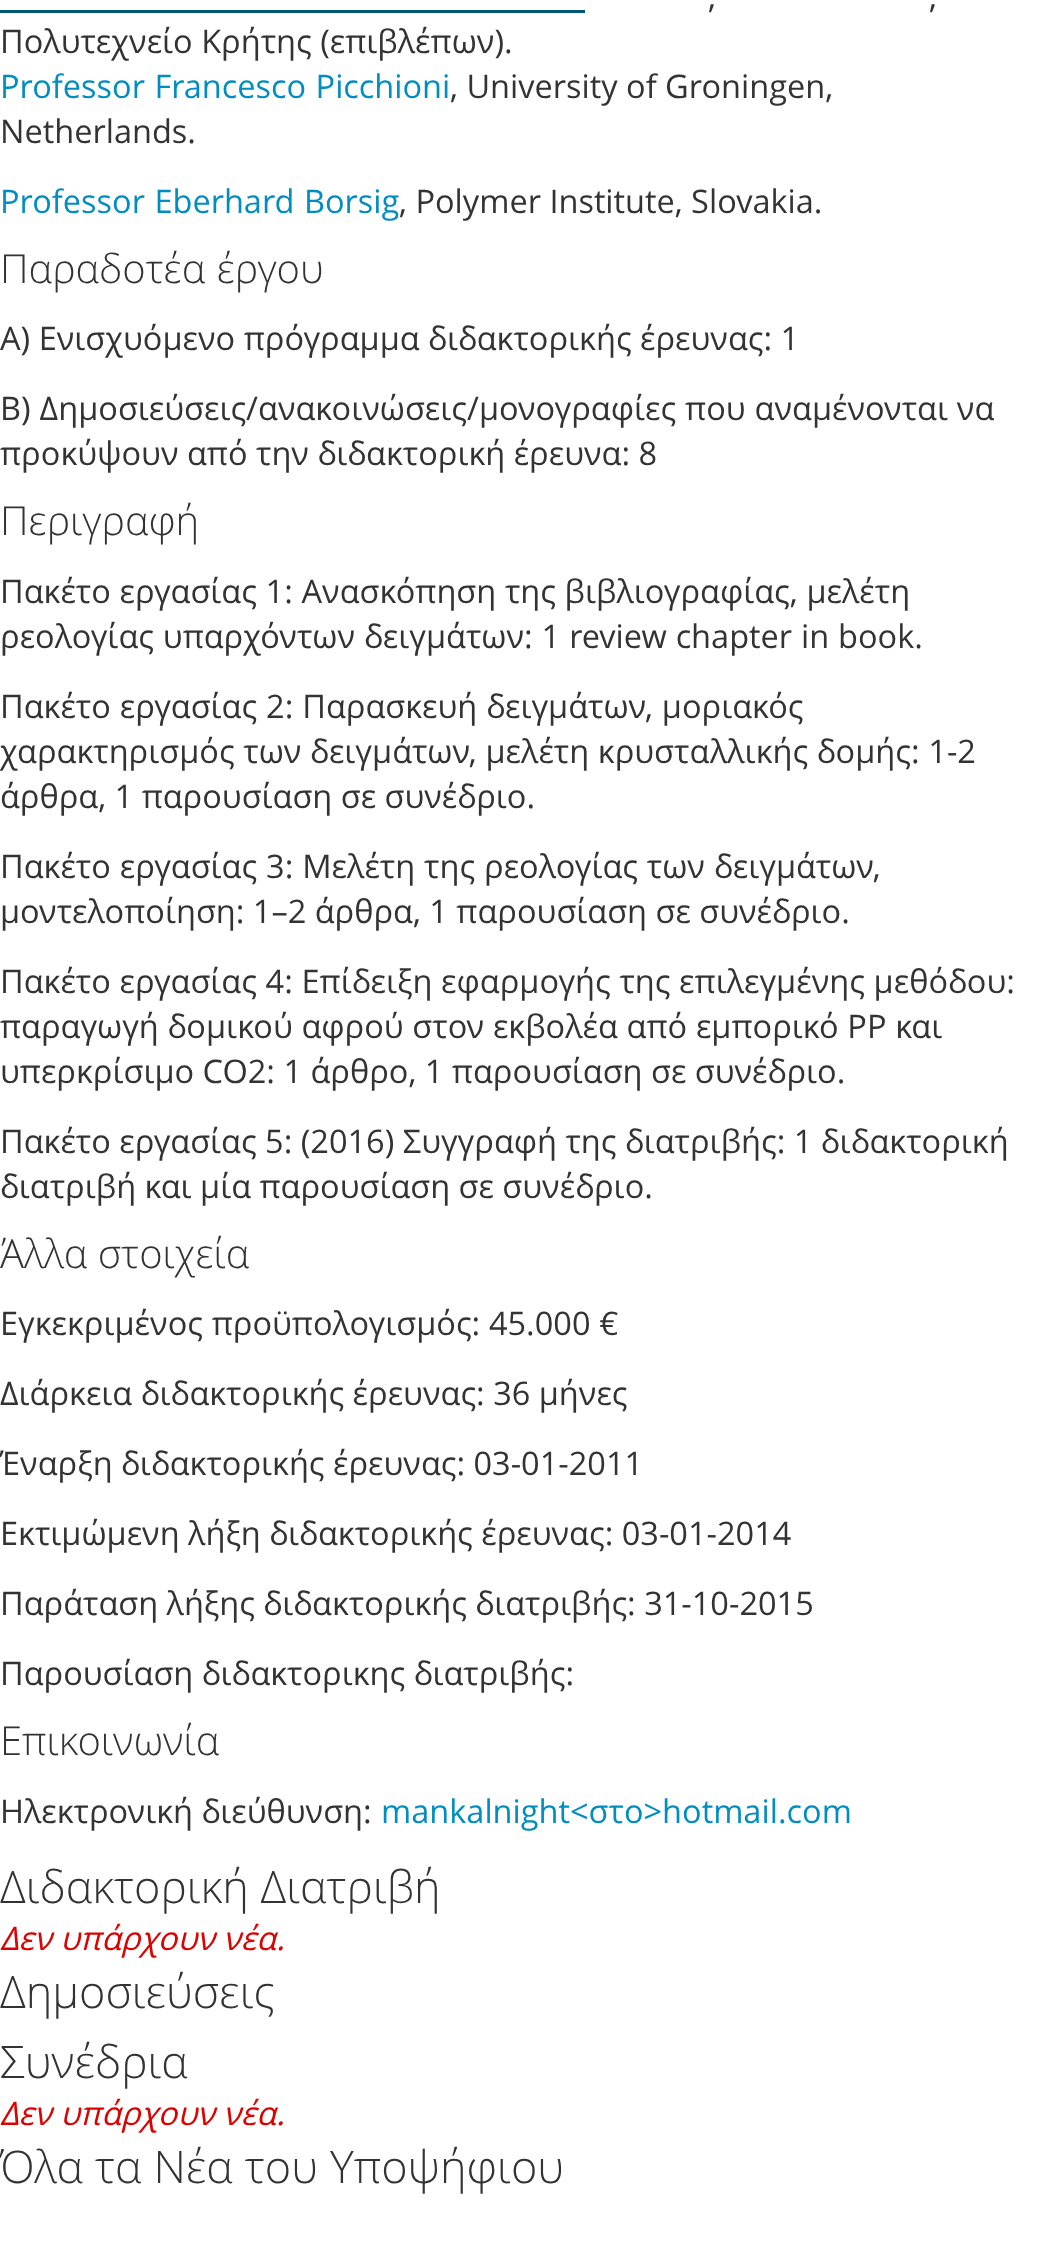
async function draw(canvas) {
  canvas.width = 1039
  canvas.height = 2264
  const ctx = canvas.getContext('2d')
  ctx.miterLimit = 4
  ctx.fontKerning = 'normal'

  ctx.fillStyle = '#fff'
  ctx.fillRect(0, 0, 1039, 2264)
  ctx.fillStyle = '#015574'
  ctx.fillRect(0, 10, 585, 3)
  ctx.wordSpacing = '2px'
  ctx.font = '32.5px Open Sans'
  ctx.fillStyle = '#333'
  ctx.fillText(',', 708, 8)
  ctx.fillText(',', 929, 8)
  ctx.wordSpacing = '0px'
  ctx.fillText('Πολυτεχνείο Κρήτης (επιβλέπων).', 0, 53)
  ctx.wordSpacing = '1px'
  ctx.fillStyle = '#028dc0'
  ctx.fillText('Professor Francesco Picchioni', 0, 98)
  ctx.wordSpacing = '0px'
  ctx.fillStyle = '#333'
  ctx.fillText(', University of Groningen,', 450, 98)
  ctx.fillText('Netherlands.', 0, 143)
  ctx.wordSpacing = '1px'
  ctx.fillStyle = '#028dc0'
  ctx.fillText('Professor Eberhard Borsig', 0, 213)
  ctx.wordSpacing = '0px'
  ctx.fillStyle = '#333'
  ctx.fillText(', Polymer Institute, Slovakia.', 399, 213)
  ctx.wordSpacing = '1px'
  ctx.font = '300 40px Open Sans'
  ctx.fillText('Παραδοτέα έργου', 0, 283)
  ctx.wordSpacing = '0px'
  ctx.font = '32.5px Open Sans'
  ctx.fillText('Α) Ενισχυόμενο πρόγραμμα διδακτορικής έρευνας: 1', 0, 350)
  ctx.wordSpacing = '0.5px'
  ctx.fillText('Β) Δημοσιεύσεις/ανακοινώσεις/μονογραφίες που αναμένονται να', 0, 420)
  ctx.wordSpacing = '0px'
  ctx.fillText('προκύψουν από την διδακτορική έρευνα: 8', 0, 465)
  ctx.font = '300 40px Open Sans'
  ctx.fillText('Περιγραφή', 0, 535)
  ctx.wordSpacing = '0.25px'
  ctx.font = '32.5px Open Sans'
  ctx.fillText('Πακέτο εργασίας 1: Ανασκόπηση της βιβλιογραφίας, μελέτη', 0, 603)
  ctx.wordSpacing = '0.5px'
  ctx.fillText('ρεολογίας υπαρχόντων δειγμάτων: 1 review chapter in book.', 0, 648)
  ctx.fillText('Πακέτο εργασίας 2: Παρασκευή δειγμάτων, μοριακός', 0, 718)
  ctx.wordSpacing = '0.25px'
  ctx.fillText('χαρακτηρισμός των δειγμάτων, μελέτη κρυσταλλικής δομής: 1-2', 0, 763)
  ctx.wordSpacing = '0px'
  ctx.fillText('άρθρα, 1 παρουσίαση σε συνέδριο.', 0, 808)
  ctx.wordSpacing = '0.5px'
  ctx.fillText('Πακέτο εργασίας 3: Μελέτη της ρεολογίας των δειγμάτων,', 0, 878)
  ctx.wordSpacing = '0px'
  ctx.fillText('μοντελοποίηση: 1–2 άρθρα, 1 παρουσίαση σε συνέδριο.', 0, 923)
  ctx.wordSpacing = '0.25px'
  ctx.fillText('Πακέτο εργασίας 4: Επίδειξη εφαρμογής της επιλεγμένης μεθόδου:', 0, 993)
  ctx.fillText('παραγωγή δομικού αφρού στον εκβολέα από εμπορικό PP και', 0, 1038)
  ctx.wordSpacing = '0px'
  ctx.fillText('υπερκρίσιμο CO2: 1 άρθρο, 1 παρουσίαση σε συνέδριο.', 0, 1083)
  ctx.fillText('Πακέτο εργασίας 5: (2016) Συγγραφή της διατριβής: 1 διδακτορική', 0, 1153)
  ctx.fillText('διατριβή και μία παρουσίαση σε συνέδριο.', 0, 1198)
  ctx.font = '300 40px Open Sans'
  ctx.fillText('Άλλα στοιχεία', 0, 1268)
  ctx.wordSpacing = '0.25px'
  ctx.font = '32.5px Open Sans'
  ctx.fillText('Εγκεκριμένος προϋπολογισμός: 45.000 €', 0, 1335)
  ctx.wordSpacing = '0px'
  ctx.fillText('Διάρκεια διδακτορικής έρευνας: 36 μήνες', 0, 1405)
  ctx.fillText('Έναρξη διδακτορικής έρευνας: 03-01-2011', 0, 1475)
  ctx.fillText('Εκτιμώμενη λήξη διδακτορικής έρευνας: 03-01-2014', 0, 1545)
  ctx.fillText('Παράταση λήξης διδακτορικής διατριβής: 31-10-2015', 0, 1615)
  ctx.fillText('Παρουσίαση διδακτορικης διατριβής:', 0, 1685)
  ctx.font = '300 40px Open Sans'
  ctx.fillText('Επικοινωνία', 0, 1755)
  ctx.font = '32.5px Open Sans'
  ctx.fillText('Ηλεκτρονική διεύθυνση:', 0, 1823)
  ctx.fillStyle = '#028dc0'
  ctx.fillText('mankalnight<στο>hotmail.com', 381, 1823)
  ctx.font = '300 45px Open Sans'
  ctx.fillStyle = '#333'
  ctx.fillText('Διδακτορική Διατριβή', 0, 1903)
  ctx.font = 'italic 32.5px Open Sans'
  ctx.fillStyle = '#db0202'
  ctx.fillText('Δεν υπάρχουν νέα.', 0, 1950)
  ctx.font = '300 45px Open Sans'
  ctx.fillStyle = '#333'
  ctx.fillText('Δημοσιεύσεις', 0, 2008)
  ctx.fillText('Συνέδρια', 0, 2078)
  ctx.font = 'italic 32.5px Open Sans'
  ctx.fillStyle = '#db0202'
  ctx.fillText('Δεν υπάρχουν νέα.', 0, 2125)
  ctx.wordSpacing = '0.25px'
  ctx.font = '300 45px Open Sans'
  ctx.fillStyle = '#333'
  ctx.fillText('Όλα τα Νέα του Υποψήφιου', 0, 2183)
}

draw(document.querySelector('canvas'))
